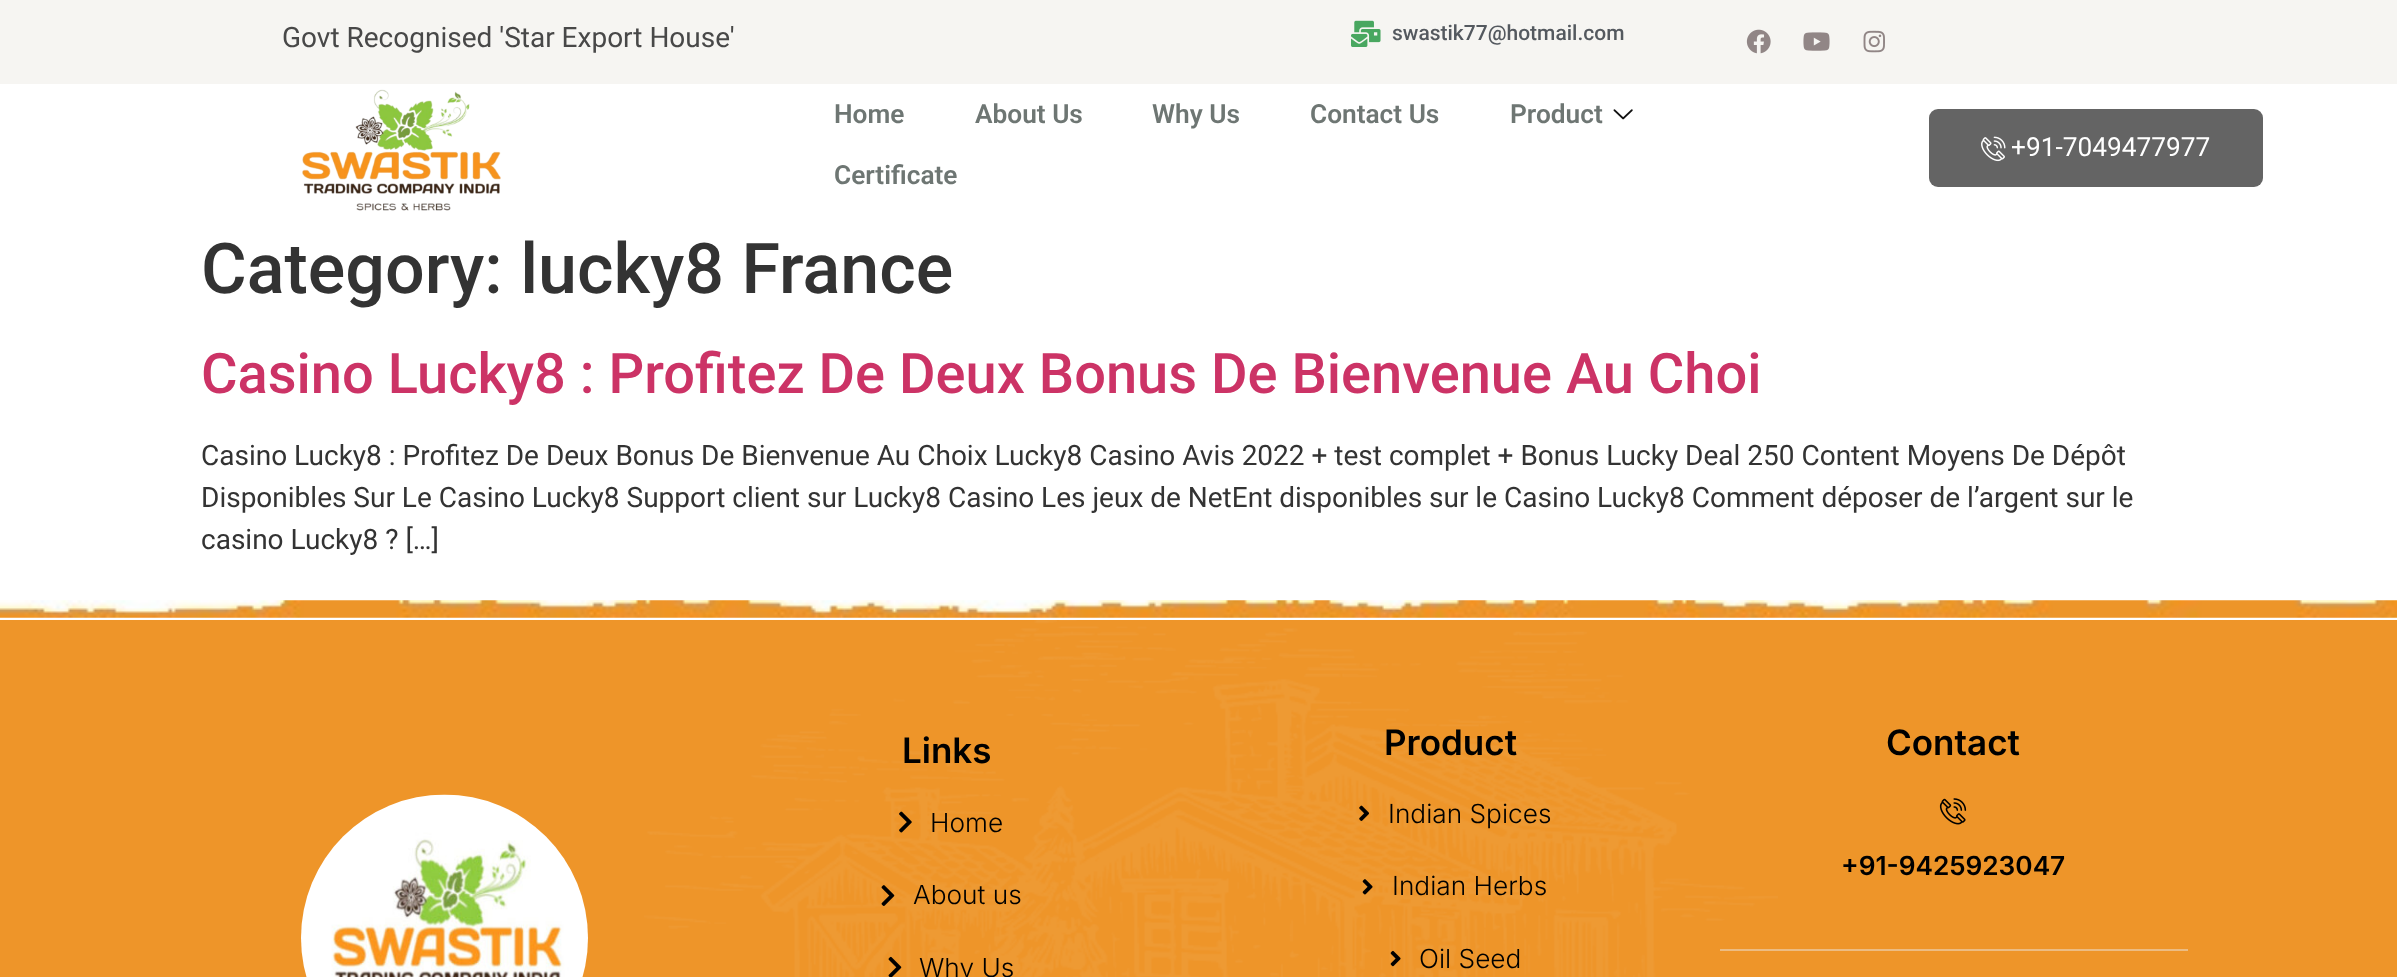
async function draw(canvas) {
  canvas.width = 2397
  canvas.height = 977
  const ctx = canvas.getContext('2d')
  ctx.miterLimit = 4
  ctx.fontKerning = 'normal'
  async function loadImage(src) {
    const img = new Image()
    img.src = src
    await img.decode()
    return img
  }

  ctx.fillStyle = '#fff'
  ctx.fillRect(0, 0, 2397, 977)
  ctx.fillStyle = '#f6f5f2'
  ctx.fillRect(0, 0, 2397, 84)
  ctx.font = '28px Roboto'
  ctx.fillStyle = '#484848'
  ctx.fillText('Govt Recognised \'Star Export House\'', 282, 47)
  ctx.drawImage(await loadImage('image0.png'), 1351, 20, 30, 27)
  ctx.font = '500 21px Roboto'
  ctx.fillStyle = '#54595f'
  ctx.fillText('swastik77@hotmail.com', 1392, 40)
  ctx.drawImage(await loadImage('image1.png'), 1746, 29, 25, 25)
  ctx.drawImage(await loadImage('image2.png'), 1803, 32, 27, 19)
  ctx.drawImage(await loadImage('image3.png'), 1863, 30, 22, 23)
  ctx.drawImage(await loadImage('image4.png'), 302, 89, 199, 122)
  ctx.font = '600 26.25px Roboto'
  ctx.fillStyle = '#6e7673'
  ctx.fillText('Home', 834, 123)
  ctx.fillText('About Us', 975, 123)
  ctx.fillText('Why Us', 1152, 123)
  ctx.fillText('Contact Us', 1310, 123)
  ctx.fillText('Product', 1510, 123)
  ctx.drawImage(await loadImage('image5.png'), 1613, 109, 20, 11)
  ctx.fillText('Certificate', 834, 184)
  ctx.fillStyle = '#646464'
  ctx.beginPath()
  ctx.roundRect(1929, 109, 334, 78, 9)
  ctx.fill()
  ctx.drawImage(await loadImage('image6.png'), 1981, 136, 25, 26)
  ctx.font = '26.25px Roboto'
  ctx.fillStyle = '#fff'
  ctx.fillText('+91-7049477977', 2011, 156)
  ctx.font = '500 70px Roboto'
  ctx.fillStyle = '#333'
  ctx.fillText('Category: lucky8 France', 201, 293)
  ctx.font = '500 56px Roboto'
  ctx.fillStyle = '#c36'
  ctx.fillText('Casino Lucky8 : Profitez De Deux Bonus De Bienvenue Au Choi', 201, 393)
  ctx.font = '28px Roboto'
  ctx.fillStyle = '#333'
  ctx.fillText('Casino Lucky8 : Profitez De Deux Bonus De Bienvenue Au Choix Lucky8 Casino Avis 2022 + test complet + Bonus Lucky Deal 250 Content Moyens De Dépôt', 201, 465)
  ctx.fillText('Disponibles Sur Le Casino Lucky8 Support client sur Lucky8 Casino Les jeux de NetEnt disponibles sur le Casino Lucky8 Comment déposer de l’argent sur le', 201, 507)
  ctx.fillText('casino Lucky8 ? […]', 201, 549)
  ctx.drawImage(await loadImage('image7.png'), 0, 600, 2397, 18)
  ctx.fillStyle = '#ee9529'
  ctx.fillRect(0, 620, 2397, 357)
  ctx.drawImage(await loadImage('image8.png'), 644, 620, 1134, 357)
  ctx.drawImage(await loadImage('image9.png'), 301, 794, 287, 183)
  ctx.font = '600 35px Inter'
  ctx.fillStyle = '#000'
  ctx.fillText('Links', 902, 763)
  ctx.drawImage(await loadImage('image10.png'), 899, 811, 13, 22)
  ctx.font = '300 26.25px Inter'
  ctx.fillText('Home', 930, 832)
  ctx.drawImage(await loadImage('image11.png'), 881, 885, 14, 21)
  ctx.fillText('About us', 913, 904)
  ctx.drawImage(await loadImage('image12.png'), 888, 956, 14, 21)
  ctx.fillText('Why Us', 919, 977)
  ctx.font = '600 35px Inter'
  ctx.fillText('Product', 1384, 755)
  ctx.drawImage(await loadImage('image13.png'), 1359, 805, 10, 16)
  ctx.font = '300 26.25px Inter'
  ctx.fillText('Indian Spices', 1388, 823)
  ctx.drawImage(await loadImage('image14.png'), 1362, 879, 11, 16)
  ctx.fillText('Indian Herbs', 1392, 895)
  ctx.drawImage(await loadImage('image15.png'), 1390, 950, 11, 17)
  ctx.fillText('Oil Seed', 1419, 968)
  ctx.font = '600 35px Inter'
  ctx.fillText('Contact', 1886, 755)
  ctx.drawImage(await loadImage('image16.png'), 1939, 798, 28, 27)
  ctx.font = '600 26.25px Inter'
  ctx.fillText('+91-9425923047', 1841, 875)
  ctx.fillStyle = '#ecbc82'
  ctx.fillRect(1720, 949, 468, 2)
}

draw(document.querySelector('canvas'))
